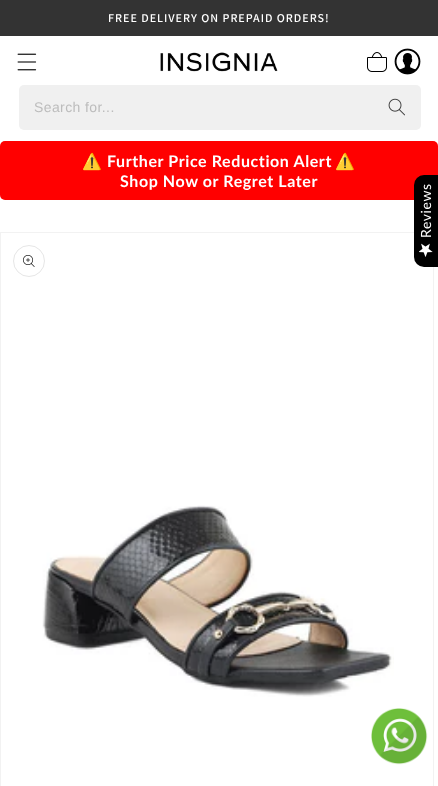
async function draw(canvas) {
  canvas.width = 438
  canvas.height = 786
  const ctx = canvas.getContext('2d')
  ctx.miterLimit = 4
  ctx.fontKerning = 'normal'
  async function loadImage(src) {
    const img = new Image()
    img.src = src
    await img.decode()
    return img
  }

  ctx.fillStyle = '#fff'
  ctx.fillRect(0, 0, 438, 786)
  ctx.fillStyle = '#333'
  ctx.fillRect(0, 0, 438, 36)
  ctx.letterSpacing = '1px'
  ctx.font = '600 12px Assistant'
  ctx.fillStyle = '#fff'
  ctx.fillText('FREE DELIVERY ON PREPAID ORDERS!', 108, 22)
  ctx.drawImage(await loadImage('image0.png'), 17, 53, 20, 18)
  ctx.drawImage(await loadImage('image1.png'), 160, 52, 118, 20)
  ctx.drawImage(await loadImage('image2.png'), 367, 52, 20, 20)
  ctx.drawImage(await loadImage('image3.png'), 394, 48, 27, 27)
  ctx.fillStyle = '#f0f0f0'
  ctx.beginPath()
  ctx.roundRect(19, 85, 402, 45, 5)
  ctx.fill()
  ctx.letterSpacing = '0.4px'
  ctx.font = '14px Liberation Sans'
  ctx.fillStyle = '#bcbcbc'
  ctx.fillText('Search for...', 34, 112)
  ctx.drawImage(await loadImage('image4.png'), 388, 98, 17, 18)
  ctx.fillStyle = '#f00'
  ctx.beginPath()
  ctx.roundRect(0, 141, 438, 59, 5)
  ctx.fill()
  ctx.letterSpacing = '0.6px'
  ctx.font = 'bold 16px Noto Color Emoji'
  ctx.fillStyle = '#fff'
  ctx.fillText('⚠️', 82, 167)
  ctx.font = 'bold 16px Lato'
  ctx.fillText('Further Price Reduction Alert', 107, 167)
  ctx.font = 'bold 16px Noto Color Emoji'
  ctx.fillText('⚠️', 335, 167)
  ctx.font = 'bold 16px Lato'
  ctx.fillText('Shop Now or Regret Later', 120, 187)
  ctx.strokeStyle = '#f2f2f2'
  ctx.strokeRect(0.5, 232.5, 433, 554)
  ctx.beginPath()
  ctx.arc(29, 261, 15.5, 0, 2 * Math.PI)
  ctx.strokeStyle = '#e6e6e6'
  ctx.stroke()
  ctx.drawImage(await loadImage('image5.png'), 23, 255, 12, 12)
  ctx.drawImage(await loadImage('image6.png'), 42, 505, 352, 192)
  ctx.fillStyle = '#000'
  ctx.beginPath()
  ctx.roundRect(414, 175, 24, 92, [10, 0, 0, 10])
  ctx.fill()
  ctx.font = '14px Lato'
  ctx.fillStyle = '#fff'
  ctx.save()
  ctx.translate(431, 238)
  ctx.rotate(-90 * Math.PI / 180)
  ctx.fillText('Reviews', 0, 0)
  ctx.restore()
  ctx.drawImage(await loadImage('image7.png'), 419, 243, 14, 14)
  ctx.drawImage(await loadImage('image8.png'), 371, 708, 57, 57)
}

draw(document.querySelector('canvas'))
